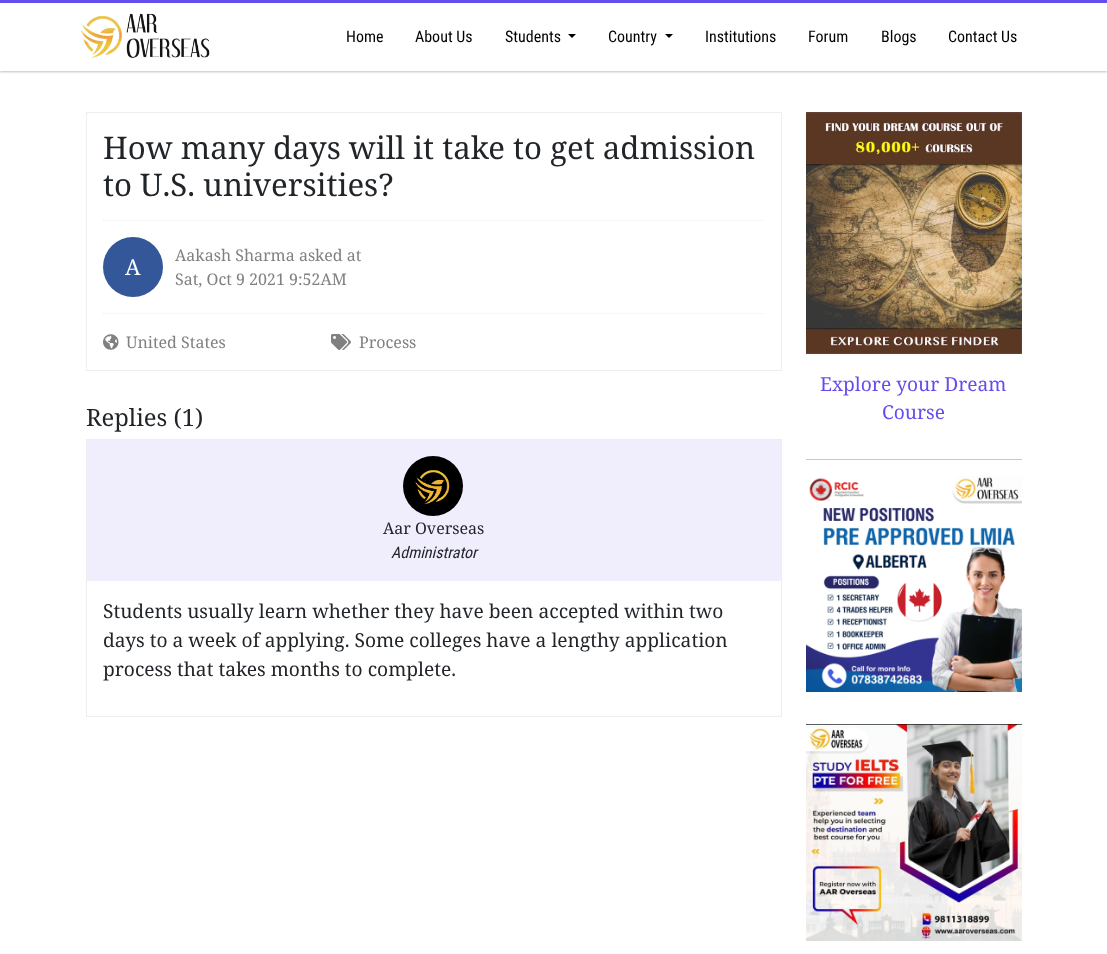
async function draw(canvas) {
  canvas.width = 1107
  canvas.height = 954
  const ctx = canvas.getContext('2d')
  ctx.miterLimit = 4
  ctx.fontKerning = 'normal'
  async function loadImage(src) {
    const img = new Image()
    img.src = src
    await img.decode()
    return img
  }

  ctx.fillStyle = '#fff'
  ctx.fillRect(0, 0, 1107, 954)
  ctx.save()
  ctx.beginPath()
  ctx.rect(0, 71, 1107, 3)
  ctx.clip()
  ctx.fillStyle = '#c0c0c0'
  ctx.filter = 'blur(1px)'
  ctx.beginPath()
  ctx.rect(0, 1, 1107, 71)
  ctx.fill()
  ctx.filter = 'none'
  ctx.restore()
  ctx.fillStyle = '#634ded'
  ctx.fillRect(0, 0, 1107, 3)
  ctx.drawImage(await loadImage('image0.png'), 81, 13, 129, 45)
  ctx.font = '16px Roboto Condensed'
  ctx.fillStyle = '#000'
  ctx.fillText('Home', 346, 42)
  ctx.fillText('About Us', 415, 42)
  ctx.fillText('Students', 505, 42)
  ctx.beginPath()
  ctx.moveTo(568, 34)
  ctx.lineTo(576, 34)
  ctx.lineTo(572, 38)
  ctx.closePath()
  ctx.fill()
  ctx.fillText('Country', 608, 42)
  ctx.beginPath()
  ctx.moveTo(665, 34)
  ctx.lineTo(673, 34)
  ctx.lineTo(669, 38)
  ctx.closePath()
  ctx.fill()
  ctx.fillText('Institutions', 705, 42)
  ctx.fillText('Forum', 808, 42)
  ctx.fillText('Blogs', 881, 42)
  ctx.fillText('Contact Us', 948, 42)
  ctx.strokeStyle = '#eee'
  ctx.strokeRect(86.5, 112.5, 695, 258)
  ctx.font = '31.2px Noto Serif'
  ctx.fillStyle = '#212529'
  ctx.fillText('How many days will it take to get admission', 103, 159)
  ctx.fillText('to U.S. universities?', 103, 196)
  ctx.beginPath()
  ctx.moveTo(103, 220.5)
  ctx.lineTo(765, 220.5)
  ctx.setLineDash([1, 1])
  ctx.stroke()
  ctx.fillStyle = '#335799'
  ctx.beginPath()
  ctx.arc(133, 267, 30, 0, 2 * Math.PI)
  ctx.fill()
  ctx.font = '22px Noto Serif'
  ctx.fillStyle = '#fff'
  ctx.fillText('A', 125, 275)
  ctx.font = '16px Noto Serif'
  ctx.fillStyle = '#808080'
  ctx.fillText('Aakash Sharma asked at', 175, 261)
  ctx.fillText('Sat, Oct 9 2021 9:52AM', 175, 285)
  ctx.beginPath()
  ctx.moveTo(103, 313.5)
  ctx.lineTo(765, 313.5)
  ctx.stroke()
  ctx.drawImage(await loadImage('image1.png'), 103, 334, 16, 16)
  ctx.fillText('United States', 126, 348)
  ctx.drawImage(await loadImage('image2.png'), 331, 334, 20, 16)
  ctx.fillText('Process', 359, 348)
  ctx.font = '23.75px Noto Serif'
  ctx.fillStyle = '#212529'
  ctx.fillText('Replies (1)', 86, 426)
  ctx.setLineDash([])
  ctx.strokeRect(86.5, 439.5, 695, 277)
  ctx.fillStyle = '#f0edfd'
  ctx.fillRect(87, 440, 694, 141)
  ctx.fillStyle = '#000'
  ctx.beginPath()
  ctx.arc(433, 486, 30, 0, 2 * Math.PI)
  ctx.fill()
  ctx.drawImage(await loadImage('image3.png'), 415, 470, 35, 35)
  ctx.font = '16px Noto Serif'
  ctx.fillStyle = '#212529'
  ctx.fillText('Aar Overseas', 383, 534)
  ctx.font = 'italic 16px Roboto Condensed'
  ctx.fillText('Administrator', 391, 558)
  ctx.font = '19.2px Noto Serif'
  ctx.fillText('Students usually learn whether they have been accepted within two', 103, 618)
  ctx.fillText('days to a week of applying. Some colleges have a lengthy application', 103, 647)
  ctx.fillText('process that takes months to complete.', 103, 676)
  ctx.drawImage(await loadImage('image4.png'), 806, 112, 216, 242)
  ctx.fillStyle = '#634ded'
  ctx.fillText('Explore your Dream', 820, 391)
  ctx.fillText('Course', 882, 419)
  ctx.fillStyle = '#c8c9ca'
  ctx.fillRect(806, 459, 216, 1)
  ctx.drawImage(await loadImage('image5.png'), 806, 476, 216, 216)
  ctx.drawImage(await loadImage('image6.png'), 806, 724, 216, 217)
}

draw(document.querySelector('canvas'))
